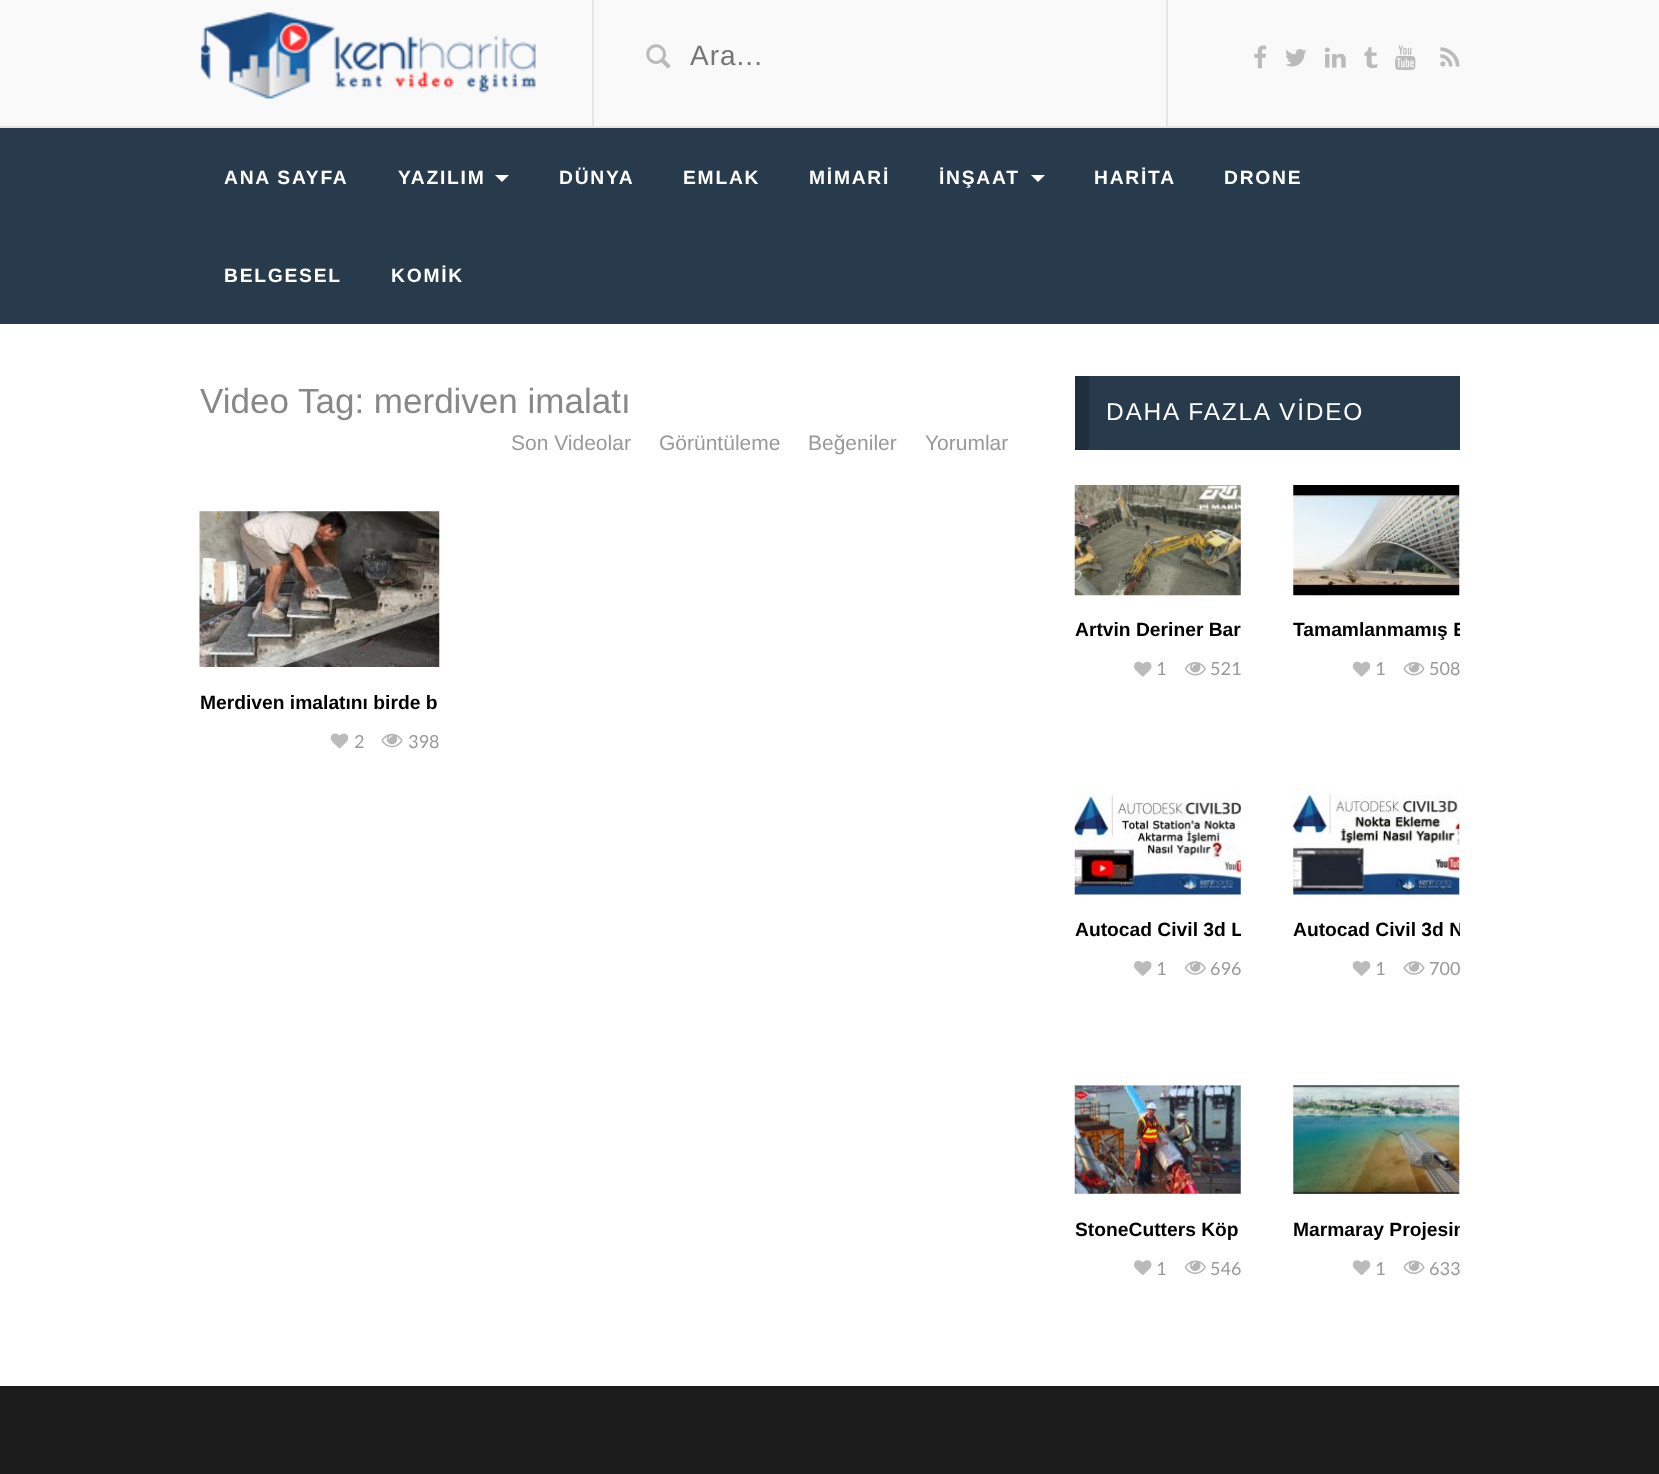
async function draw(canvas) {
  canvas.width = 1659
  canvas.height = 1474
  const ctx = canvas.getContext('2d')
  ctx.miterLimit = 4
  ctx.fontKerning = 'normal'
  async function loadImage(src) {
    const img = new Image()
    img.src = src
    await img.decode()
    return img
  }

  ctx.fillStyle = '#fff'
  ctx.fillRect(0, 0, 1659, 1474)
  ctx.fillStyle = '#f9f9f9'
  ctx.fillRect(0, 0, 1659, 126)
  ctx.fillStyle = '#e5e5e5'
  ctx.fillRect(0, 126, 1659, 2)
  ctx.fillRect(592, 0, 2, 126)
  ctx.drawImage(await loadImage('image0.png'), 200, 12, 336, 87)
  ctx.drawImage(await loadImage('image1.png'), 646, 44, 25, 25)
  ctx.letterSpacing = '1px'
  ctx.font = '28px Liberation Sans'
  ctx.fillStyle = '#757575'
  ctx.fillText('Ara...', 690, 65)
  ctx.fillStyle = '#e5e5e5'
  ctx.fillRect(1166, 0, 2, 126)
  ctx.drawImage(await loadImage('image2.png'), 1254, 45, 13, 24)
  ctx.drawImage(await loadImage('image3.png'), 1285, 49, 22, 18)
  ctx.drawImage(await loadImage('image4.png'), 1324, 47, 22, 21)
  ctx.drawImage(await loadImage('image5.png'), 1364, 47, 14, 22)
  ctx.drawImage(await loadImage('image6.png'), 1395, 45, 21, 25)
  ctx.drawImage(await loadImage('image7.png'), 1440, 47, 20, 20)
  ctx.fillStyle = '#273b4c'
  ctx.fillRect(0, 128, 1659, 196)
  ctx.letterSpacing = '1.75px'
  ctx.font = 'bold 19.25px Liberation Sans'
  ctx.fillStyle = '#fff'
  ctx.fillText('ANA SAYFA', 224, 184)
  ctx.fillText('YAZILIM', 398, 184)
  ctx.beginPath()
  ctx.moveTo(495, 175)
  ctx.lineTo(509, 175)
  ctx.lineTo(502, 182)
  ctx.closePath()
  ctx.fill()
  ctx.fillText('DÜNYA', 559, 184)
  ctx.fillText('EMLAK', 683, 184)
  ctx.fillText('MİMARİ', 809, 184)
  ctx.fillText('İNŞAAT', 939, 184)
  ctx.beginPath()
  ctx.moveTo(1031, 175)
  ctx.lineTo(1045, 175)
  ctx.lineTo(1038, 182)
  ctx.closePath()
  ctx.fill()
  ctx.fillText('HARİTA', 1094, 184)
  ctx.fillText('DRONE', 1224, 184)
  ctx.fillText('BELGESEL', 224, 282)
  ctx.fillText('KOMİK', 391, 282)
  ctx.letterSpacing = '0px'
  ctx.font = '35px Liberation Sans'
  ctx.fillStyle = '#888'
  ctx.fillText('Video Tag: merdiven imalatı', 200, 413)
  ctx.font = '21px Liberation Sans'
  ctx.fillStyle = '#999'
  ctx.fillText('Son Videolar', 511, 450)
  ctx.fillText('Görüntüleme', 659, 450)
  ctx.fillText('Beğeniler', 808, 450)
  ctx.fillText('Yorumlar', 925, 450)
  ctx.drawImage(await loadImage('image8.png'), 199, 511, 241, 156)
  ctx.font = 'bold 19.25px Liberation Sans'
  ctx.fillStyle = '#000'
  ctx.fillText('Merdiven imalatını birde b', 200, 709)
  ctx.drawImage(await loadImage('image9.png'), 330, 733, 19, 16)
  ctx.font = '18px Lato'
  ctx.fillStyle = '#999'
  ctx.fillText('2', 354, 748)
  ctx.drawImage(await loadImage('image10.png'), 381, 733, 22, 15)
  ctx.fillText('398', 408, 748)
  ctx.fillStyle = '#273b4c'
  ctx.fillRect(1089, 376, 371, 74)
  ctx.fillStyle = '#1f2f3d'
  ctx.fillRect(1075, 376, 14, 74)
  ctx.letterSpacing = '1.75px'
  ctx.font = '24.5px Liberation Sans'
  ctx.fillStyle = '#fff'
  ctx.fillText('DAHA FAZLA VİDEO', 1106, 420)
  ctx.drawImage(await loadImage('image11.png'), 1074, 485, 167, 111)
  ctx.letterSpacing = '0px'
  ctx.font = 'bold 19.25px Liberation Sans'
  ctx.fillStyle = '#000'
  ctx.fillText('Artvin Deriner Bar', 1075, 636)
  ctx.drawImage(await loadImage('image12.png'), 1134, 661, 18, 16)
  ctx.font = '18px Lato'
  ctx.fillStyle = '#999'
  ctx.fillText('1', 1156, 675)
  ctx.drawImage(await loadImage('image13.png'), 1184, 662, 22, 14)
  ctx.fillText('521', 1210, 675)
  ctx.drawImage(await loadImage('image14.png'), 1293, 485, 167, 111)
  ctx.save()
  ctx.beginPath()
  ctx.rect(1293, 604, 167, 45)
  ctx.clip()
  ctx.font = 'bold 19.25px Liberation Sans'
  ctx.fillStyle = '#000'
  ctx.fillText('Tamamlanmamış E', 1293, 636)
  ctx.restore()
  ctx.drawImage(await loadImage('image15.png'), 1352, 661, 19, 16)
  ctx.fillText('1', 1375, 675)
  ctx.drawImage(await loadImage('image16.png'), 1403, 662, 22, 14)
  ctx.fillText('508', 1429, 675)
  ctx.drawImage(await loadImage('image17.png'), 1074, 786, 167, 109)
  ctx.save()
  ctx.beginPath()
  ctx.rect(1075, 903, 166, 46)
  ctx.clip()
  ctx.font = 'bold 19.25px Liberation Sans'
  ctx.fillStyle = '#000'
  ctx.fillText('Autocad Civil 3d L', 1075, 936)
  ctx.restore()
  ctx.drawImage(await loadImage('image18.png'), 1134, 961, 18, 15)
  ctx.fillText('1', 1156, 975)
  ctx.drawImage(await loadImage('image19.png'), 1184, 961, 22, 14)
  ctx.fillText('696', 1210, 975)
  ctx.drawImage(await loadImage('image20.png'), 1293, 786, 167, 109)
  ctx.save()
  ctx.beginPath()
  ctx.rect(1293, 903, 167, 46)
  ctx.clip()
  ctx.font = 'bold 19.25px Liberation Sans'
  ctx.fillStyle = '#000'
  ctx.fillText('Autocad Civil 3d N', 1293, 936)
  ctx.restore()
  ctx.drawImage(await loadImage('image21.png'), 1352, 961, 19, 15)
  ctx.fillText('1', 1375, 975)
  ctx.drawImage(await loadImage('image22.png'), 1403, 961, 22, 14)
  ctx.fillText('700', 1429, 975)
  ctx.drawImage(await loadImage('image23.png'), 1074, 1085, 167, 109)
  ctx.font = 'bold 19.25px Liberation Sans'
  ctx.fillStyle = '#000'
  ctx.fillText('StoneCutters Köp', 1075, 1236)
  ctx.drawImage(await loadImage('image24.png'), 1134, 1260, 18, 16)
  ctx.font = '18px Lato'
  ctx.fillStyle = '#999'
  ctx.fillText('1', 1156, 1275)
  ctx.drawImage(await loadImage('image25.png'), 1184, 1260, 22, 14)
  ctx.fillText('546', 1210, 1275)
  ctx.drawImage(await loadImage('image26.png'), 1293, 1085, 167, 109)
  ctx.save()
  ctx.beginPath()
  ctx.rect(1293, 1202, 167, 46)
  ctx.clip()
  ctx.font = 'bold 19.25px Liberation Sans'
  ctx.fillStyle = '#000'
  ctx.fillText('Marmaray Projesin', 1293, 1236)
  ctx.restore()
  ctx.drawImage(await loadImage('image27.png'), 1352, 1260, 19, 16)
  ctx.fillText('1', 1375, 1275)
  ctx.drawImage(await loadImage('image28.png'), 1403, 1260, 22, 14)
  ctx.fillText('633', 1429, 1275)
  ctx.fillStyle = '#1c1c1c'
  ctx.fillRect(0, 1386, 1659, 88)
}

draw(document.querySelector('canvas'))
